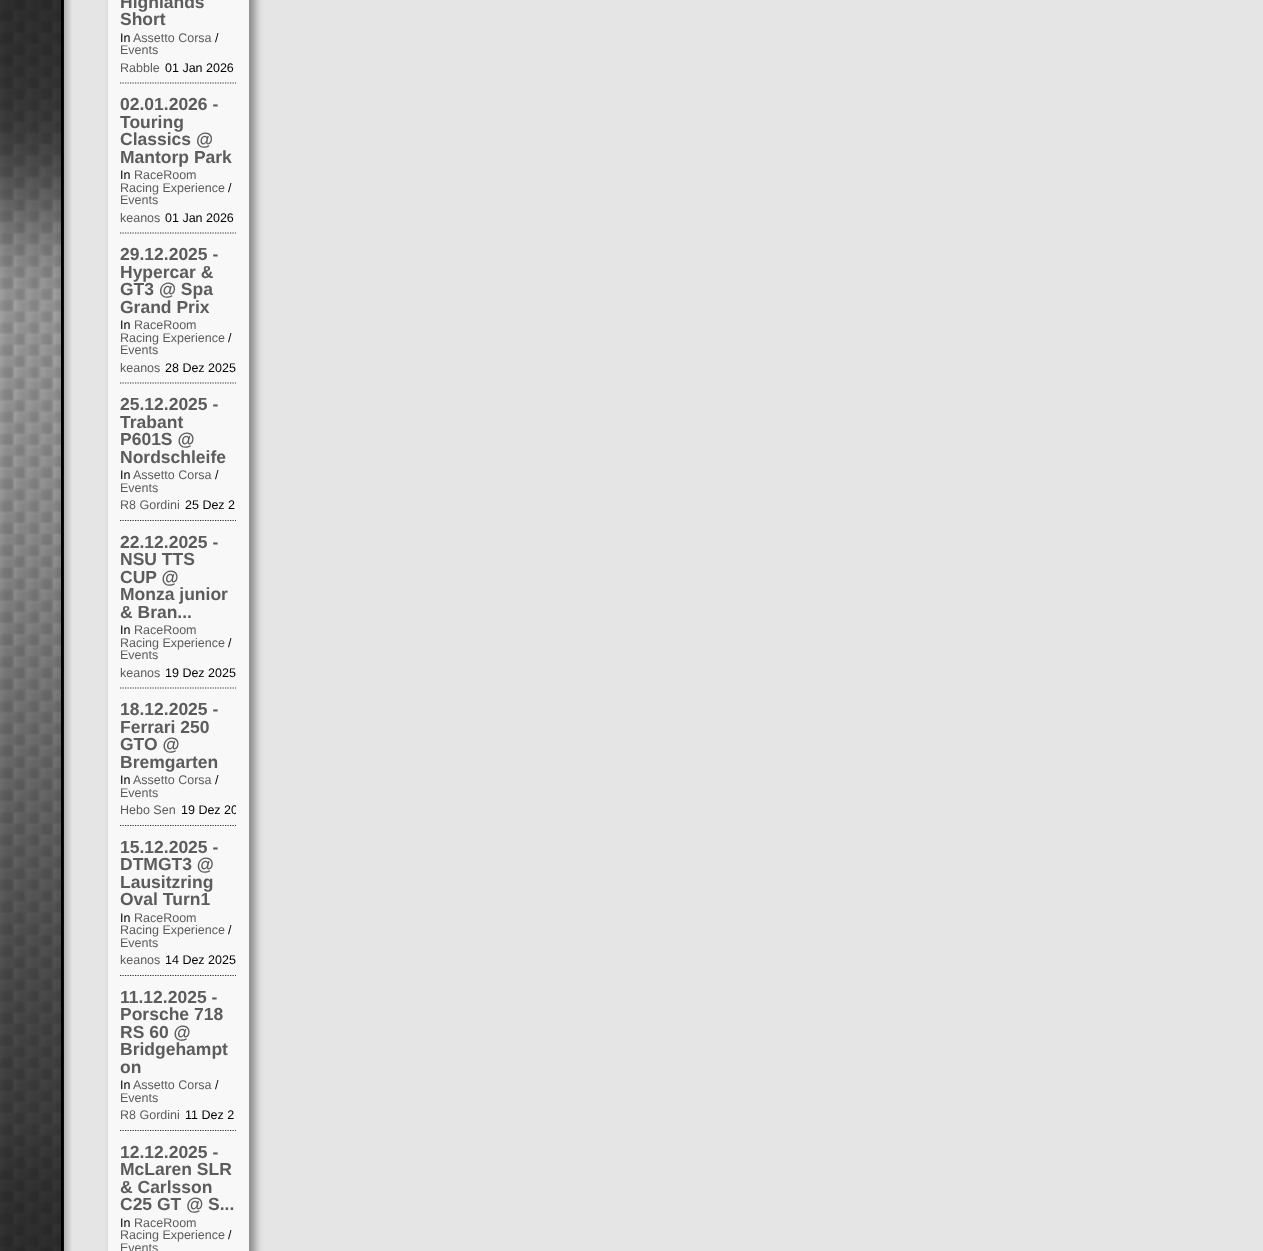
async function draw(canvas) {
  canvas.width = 1263
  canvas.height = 1251
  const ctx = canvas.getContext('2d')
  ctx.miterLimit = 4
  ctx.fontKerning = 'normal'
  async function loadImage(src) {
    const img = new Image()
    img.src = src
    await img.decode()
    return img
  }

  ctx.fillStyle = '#fff'
  ctx.fillRect(0, 0, 1263, 1251)
  ctx.drawImage(await loadImage('image0.png'), 0, 0, 61, 1251)
  ctx.fillStyle = '#000'
  ctx.fillRect(61, 0, 3, 1251)
  ctx.fillStyle = '#e5e5e5'
  ctx.fillRect(72, 0, 1191, 1251)
  ctx.drawImage(await loadImage('image1.png'), 63, 0, 9, 1251)
  ctx.fillStyle = '#888'
  ctx.filter = 'blur(4px)'
  ctx.beginPath()
  ctx.roundRect(114, -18, 141, 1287, 6)
  ctx.fill()
  ctx.filter = 'none'
  ctx.fillStyle = '#f8f8f8'
  ctx.fillRect(108, 0, 141, 1251)
  ctx.beginPath()
  ctx.moveTo(120, 83)
  ctx.lineTo(236, 83)
  ctx.strokeStyle = '#333'
  ctx.lineWidth = 1.2
  ctx.setLineDash([1.25, 1.25])
  ctx.stroke()
  ctx.font = 'bold 17.5px Liberation Sans'
  ctx.fillStyle = '#5c5c5c'
  ctx.fillText('Highlands', 120, 8)
  ctx.fillText('Short', 120, 25)
  ctx.font = '12.5px Liberation Sans'
  ctx.fillStyle = '#000'
  ctx.fillText('In', 120, 42)
  ctx.fillStyle = '#5c5c5c'
  ctx.fillText('Assetto Corsa', 133, 42)
  ctx.fillStyle = '#000'
  ctx.fillText('/', 215, 42)
  ctx.fillStyle = '#5c5c5c'
  ctx.fillText('Events', 120, 54)
  ctx.fillText('Rabble', 120, 72)
  ctx.fillStyle = '#000'
  ctx.fillText('01 Jan 2026', 165, 72)
  ctx.beginPath()
  ctx.moveTo(120, 233)
  ctx.lineTo(236, 233)
  ctx.stroke()
  ctx.font = 'bold 17.5px Liberation Sans'
  ctx.fillStyle = '#5c5c5c'
  ctx.fillText('02.01.2026 -', 120, 110)
  ctx.fillText('Touring', 120, 128)
  ctx.fillText('Classics @', 120, 145)
  ctx.fillText('Mantorp Park', 120, 163)
  ctx.font = '12.5px Liberation Sans'
  ctx.fillStyle = '#000'
  ctx.fillText('In', 120, 179)
  ctx.fillStyle = '#5c5c5c'
  ctx.fillText('RaceRoom', 134, 179)
  ctx.fillText('Racing Experience', 120, 192)
  ctx.fillStyle = '#000'
  ctx.fillText('/', 228, 192)
  ctx.fillStyle = '#5c5c5c'
  ctx.fillText('Events', 120, 204)
  ctx.fillText('keanos', 120, 222)
  ctx.fillStyle = '#000'
  ctx.fillText('01 Jan 2026', 165, 222)
  ctx.beginPath()
  ctx.moveTo(120, 383)
  ctx.lineTo(236, 383)
  ctx.stroke()
  ctx.font = 'bold 17.5px Liberation Sans'
  ctx.fillStyle = '#5c5c5c'
  ctx.fillText('29.12.2025 -', 120, 260)
  ctx.fillText('Hypercar &', 120, 278)
  ctx.fillText('GT3 @ Spa', 120, 295)
  ctx.fillText('Grand Prix', 120, 313)
  ctx.font = '12.5px Liberation Sans'
  ctx.fillStyle = '#000'
  ctx.fillText('In', 120, 329)
  ctx.fillStyle = '#5c5c5c'
  ctx.fillText('RaceRoom', 134, 329)
  ctx.fillText('Racing Experience', 120, 342)
  ctx.fillStyle = '#000'
  ctx.fillText('/', 228, 342)
  ctx.fillStyle = '#5c5c5c'
  ctx.fillText('Events', 120, 354)
  ctx.fillText('keanos', 120, 372)
  ctx.fillStyle = '#000'
  ctx.fillText('28 Dez 2025', 165, 372)
  ctx.beginPath()
  ctx.moveTo(120, 520.5)
  ctx.lineTo(236, 520.5)
  ctx.stroke()
  ctx.font = 'bold 17.5px Liberation Sans'
  ctx.fillStyle = '#5c5c5c'
  ctx.fillText('25.12.2025 -', 120, 410)
  ctx.fillText('Trabant', 120, 428)
  ctx.fillText('P601S @', 120, 445)
  ctx.fillText('Nordschleife', 120, 463)
  ctx.font = '12.5px Liberation Sans'
  ctx.fillStyle = '#000'
  ctx.fillText('In', 120, 479)
  ctx.fillStyle = '#5c5c5c'
  ctx.fillText('Assetto Corsa', 133, 479)
  ctx.fillStyle = '#000'
  ctx.fillText('/', 215, 479)
  ctx.fillStyle = '#5c5c5c'
  ctx.fillText('Events', 120, 492)
  ctx.fillText('R8 Gordini', 120, 509)
  ctx.fillStyle = '#000'
  ctx.fillText('25 Dez 2', 185, 509)
  ctx.beginPath()
  ctx.moveTo(120, 688)
  ctx.lineTo(236, 688)
  ctx.stroke()
  ctx.font = 'bold 17.5px Liberation Sans'
  ctx.fillStyle = '#5c5c5c'
  ctx.fillText('22.12.2025 -', 120, 548)
  ctx.fillText('NSU TTS', 120, 565)
  ctx.fillText('CUP @', 120, 583)
  ctx.fillText('Monza junior', 120, 600)
  ctx.fillText('& Bran...', 120, 618)
  ctx.font = '12.5px Liberation Sans'
  ctx.fillStyle = '#000'
  ctx.fillText('In', 120, 634)
  ctx.fillStyle = '#5c5c5c'
  ctx.fillText('RaceRoom', 134, 634)
  ctx.fillText('Racing Experience', 120, 647)
  ctx.fillStyle = '#000'
  ctx.fillText('/', 228, 647)
  ctx.fillStyle = '#5c5c5c'
  ctx.fillText('Events', 120, 659)
  ctx.fillText('keanos', 120, 677)
  ctx.fillStyle = '#000'
  ctx.fillText('19 Dez 2025', 165, 677)
  ctx.beginPath()
  ctx.moveTo(120, 825.5)
  ctx.lineTo(236, 825.5)
  ctx.stroke()
  ctx.font = 'bold 17.5px Liberation Sans'
  ctx.fillStyle = '#5c5c5c'
  ctx.fillText('18.12.2025 -', 120, 715)
  ctx.fillText('Ferrari 250', 120, 733)
  ctx.fillText('GTO @', 120, 750)
  ctx.fillText('Bremgarten', 120, 768)
  ctx.font = '12.5px Liberation Sans'
  ctx.fillStyle = '#000'
  ctx.fillText('In', 120, 784)
  ctx.fillStyle = '#5c5c5c'
  ctx.fillText('Assetto Corsa', 133, 784)
  ctx.fillStyle = '#000'
  ctx.fillText('/', 215, 784)
  ctx.fillStyle = '#5c5c5c'
  ctx.fillText('Events', 120, 797)
  ctx.fillText('Hebo Sen', 120, 814)
  ctx.save()
  ctx.beginPath()
  ctx.rect(120, 689, 116, 136)
  ctx.clip()
  ctx.fillStyle = '#000'
  ctx.fillText('19 Dez 20', 181, 814)
  ctx.restore()
  ctx.beginPath()
  ctx.moveTo(120, 975.5)
  ctx.lineTo(236, 975.5)
  ctx.stroke()
  ctx.font = 'bold 17.5px Liberation Sans'
  ctx.fillText('15.12.2025 -', 120, 853)
  ctx.fillText('DTMGT3 @', 120, 870)
  ctx.fillText('Lausitzring', 120, 888)
  ctx.fillText('Oval Turn1', 120, 905)
  ctx.font = '12.5px Liberation Sans'
  ctx.fillStyle = '#000'
  ctx.fillText('In', 120, 922)
  ctx.fillStyle = '#5c5c5c'
  ctx.fillText('RaceRoom', 134, 922)
  ctx.fillText('Racing Experience', 120, 934)
  ctx.fillStyle = '#000'
  ctx.fillText('/', 228, 934)
  ctx.fillStyle = '#5c5c5c'
  ctx.fillText('Events', 120, 947)
  ctx.fillText('keanos', 120, 964)
  ctx.fillStyle = '#000'
  ctx.fillText('14 Dez 2025', 165, 964)
  ctx.beginPath()
  ctx.moveTo(120, 1130.5)
  ctx.lineTo(236, 1130.5)
  ctx.stroke()
  ctx.font = 'bold 17.5px Liberation Sans'
  ctx.fillStyle = '#5c5c5c'
  ctx.fillText('11.12.2025 -', 120, 1003)
  ctx.fillText('Porsche 718', 120, 1020)
  ctx.fillText('RS 60 @', 120, 1038)
  ctx.fillText('Bridgehampt', 120, 1055)
  ctx.fillText('on', 120, 1073)
  ctx.font = '12.5px Liberation Sans'
  ctx.fillStyle = '#000'
  ctx.fillText('In', 120, 1089)
  ctx.fillStyle = '#5c5c5c'
  ctx.fillText('Assetto Corsa', 133, 1089)
  ctx.fillStyle = '#000'
  ctx.fillText('/', 215, 1089)
  ctx.fillStyle = '#5c5c5c'
  ctx.fillText('Events', 120, 1102)
  ctx.fillText('R8 Gordini', 120, 1119)
  ctx.fillStyle = '#000'
  ctx.fillText('11 Dez 2', 185, 1119)
  ctx.font = 'bold 17.5px Liberation Sans'
  ctx.fillStyle = '#5c5c5c'
  ctx.fillText('12.12.2025 -', 120, 1158)
  ctx.fillText('McLaren SLR', 120, 1175)
  ctx.fillText('& Carlsson', 120, 1193)
  ctx.fillText('C25 GT @ S...', 120, 1210)
  ctx.font = '12.5px Liberation Sans'
  ctx.fillStyle = '#000'
  ctx.fillText('In', 120, 1227)
  ctx.fillStyle = '#5c5c5c'
  ctx.fillText('RaceRoom', 134, 1227)
  ctx.fillText('Racing Experience', 120, 1239)
  ctx.fillStyle = '#000'
  ctx.fillText('/', 228, 1239)
  ctx.fillStyle = '#5c5c5c'
  ctx.fillText('Events', 120, 1252)
}

draw(document.querySelector('canvas'))
